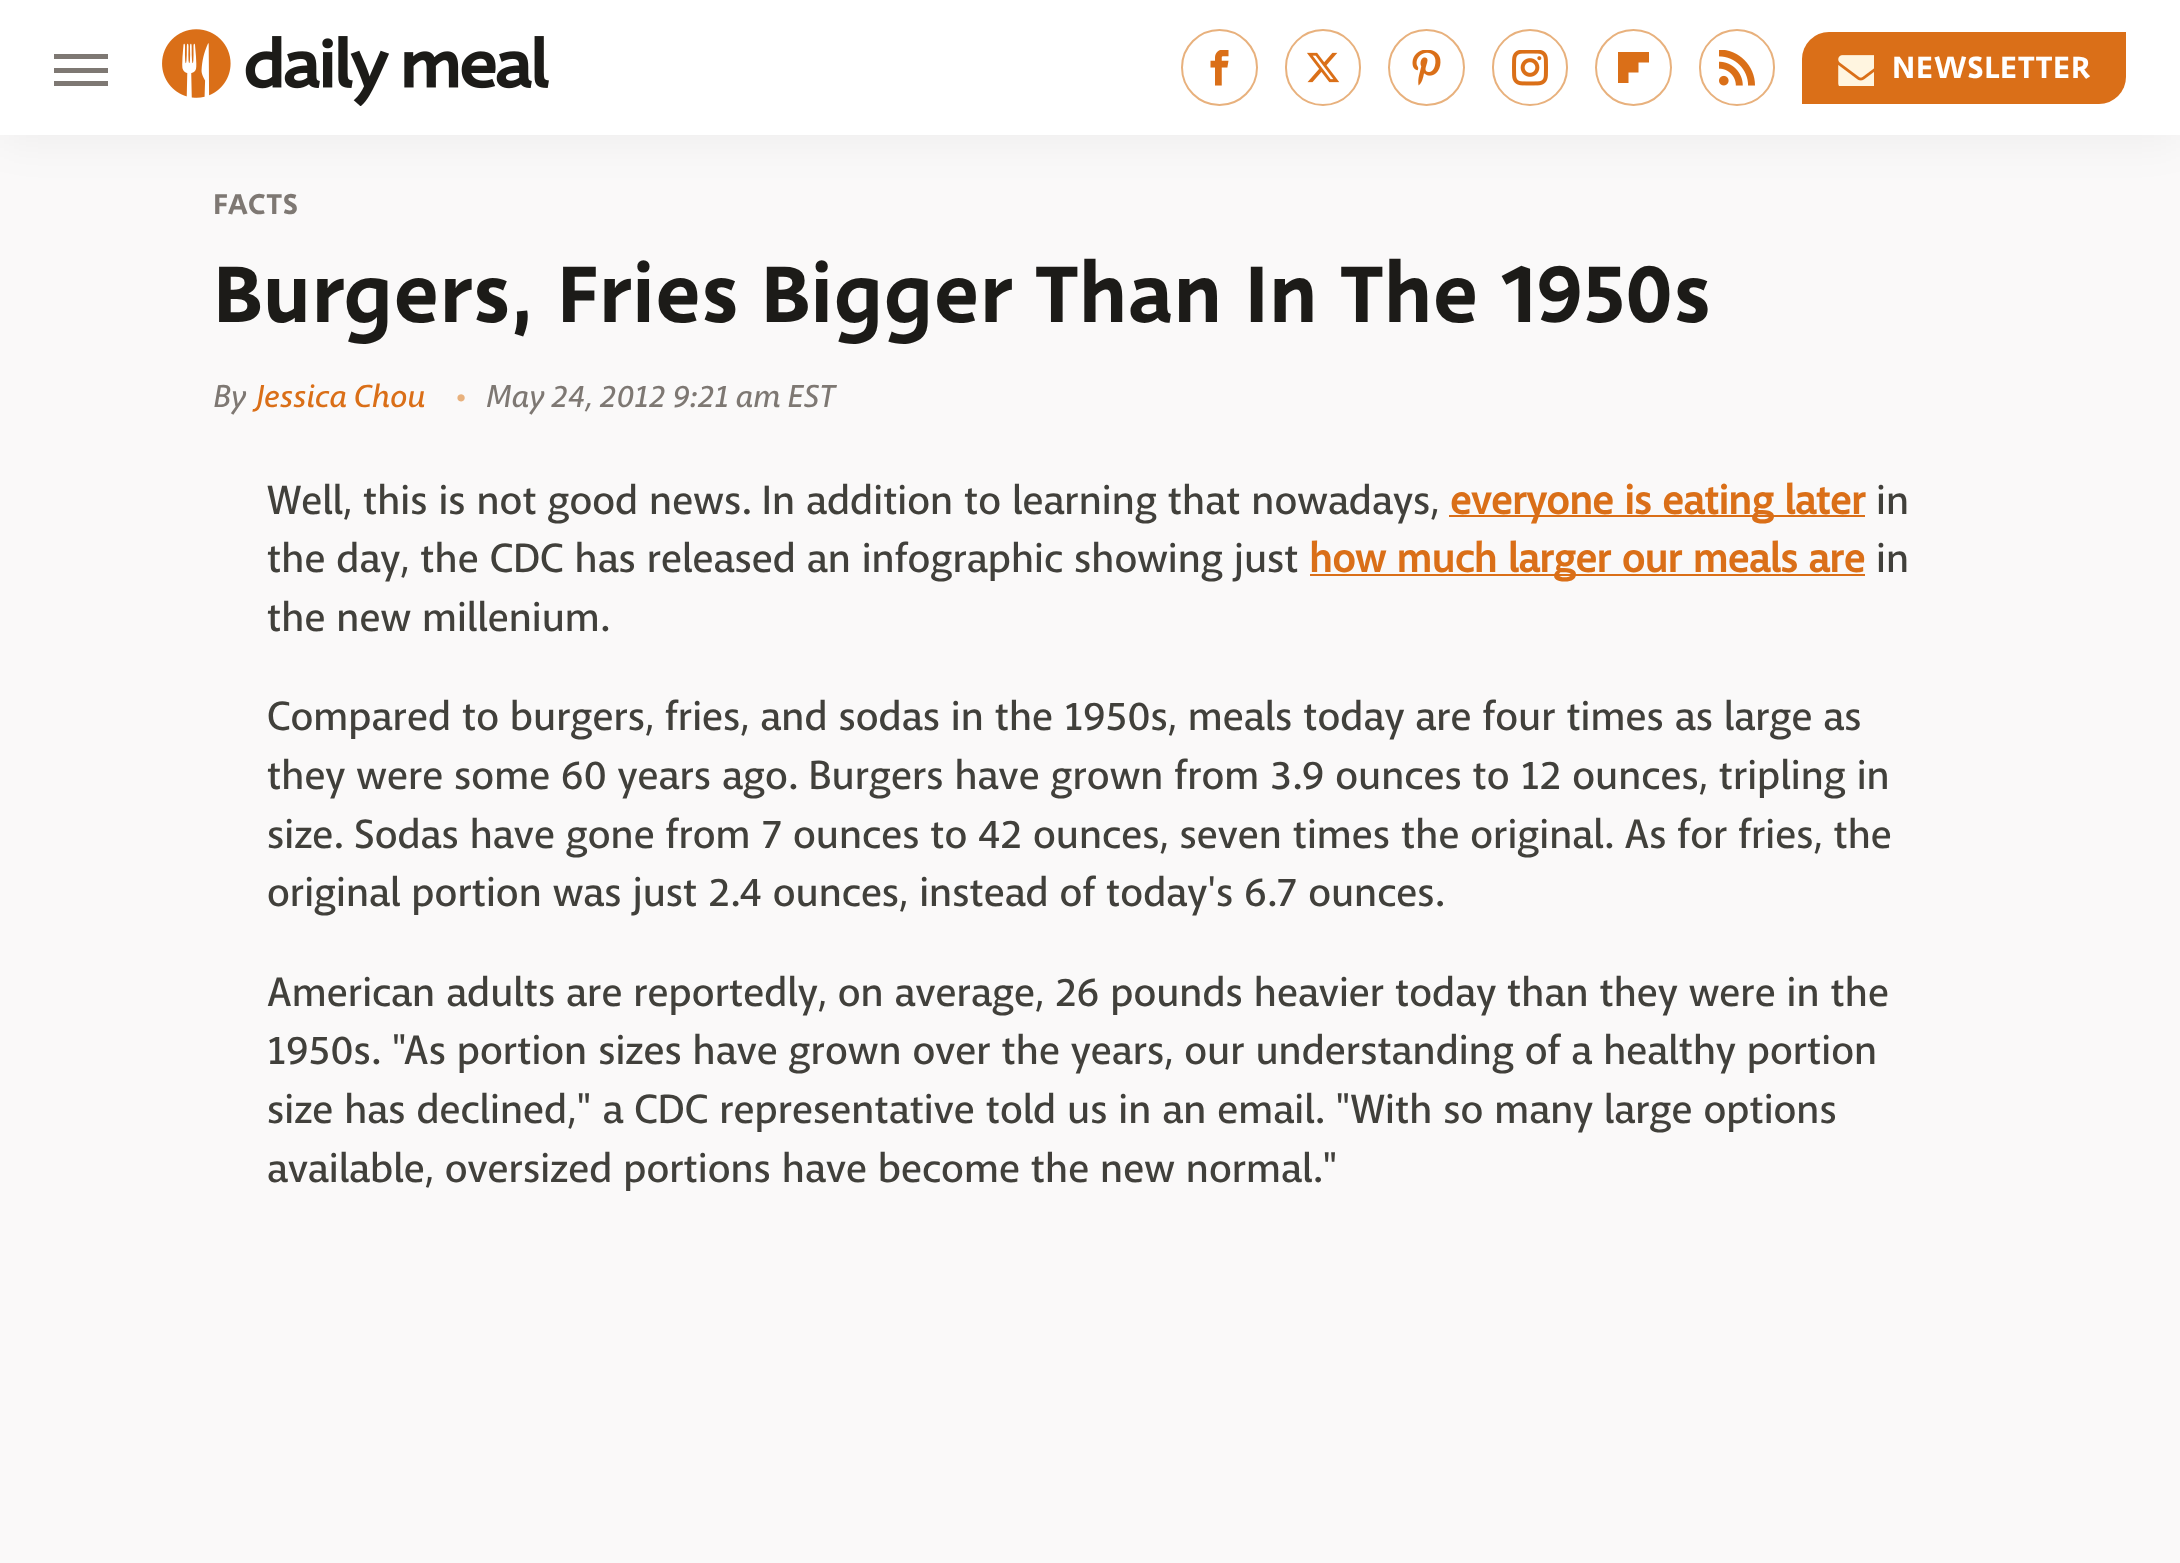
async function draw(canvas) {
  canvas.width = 2180
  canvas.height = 1563
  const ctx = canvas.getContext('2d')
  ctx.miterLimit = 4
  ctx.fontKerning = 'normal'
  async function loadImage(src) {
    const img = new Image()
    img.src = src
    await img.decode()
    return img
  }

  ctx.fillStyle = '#faf9f9'
  ctx.fillRect(0, 0, 2180, 1563)
  ctx.fillStyle = '#0000000d'
  ctx.filter = 'blur(22.5px)'
  ctx.beginPath()
  ctx.rect(0, 5, 2180, 135)
  ctx.fill()
  ctx.filter = 'none'
  ctx.fillStyle = '#fff'
  ctx.fillRect(0, 0, 2180, 135)
  ctx.fillStyle = '#7e7873'
  ctx.fillRect(54, 54, 54, 5)
  ctx.fillRect(54, 68, 54, 5)
  ctx.fillRect(54, 81, 54, 5)
  ctx.drawImage(await loadImage('image0.png'), 162, 29, 387, 77)
  ctx.beginPath()
  ctx.arc(1219.5, 67.5, 37.5, 0, 2 * Math.PI)
  ctx.strokeStyle = '#e8b17d'
  ctx.lineWidth = 2
  ctx.stroke()
  ctx.drawImage(await loadImage('image1.png'), 1210, 50, 19, 36)
  ctx.beginPath()
  ctx.roundRect(1286, 30, 74, 75, 37)
  ctx.stroke()
  ctx.drawImage(await loadImage('image2.png'), 1307, 52, 33, 31)
  ctx.beginPath()
  ctx.arc(1426.5, 67.5, 37.5, 0, 2 * Math.PI)
  ctx.stroke()
  ctx.drawImage(await loadImage('image3.png'), 1412, 50, 29, 36)
  ctx.beginPath()
  ctx.roundRect(1493, 30, 74, 75, 37)
  ctx.stroke()
  ctx.drawImage(await loadImage('image4.png'), 1512, 50, 36, 36)
  ctx.beginPath()
  ctx.arc(1633.5, 67.5, 37.5, 0, 2 * Math.PI)
  ctx.stroke()
  ctx.fillStyle = '#da6f18'
  ctx.beginPath()
  ctx.moveTo(1633.5, 52)
  ctx.lineTo(1649, 52)
  ctx.lineTo(1649, 62.5)
  ctx.lineTo(1638.5, 62.5)
  ctx.lineTo(1638.5, 72.5)
  ctx.lineTo(1628.5, 72.5)
  ctx.lineTo(1628.5, 83)
  ctx.lineTo(1618, 83)
  ctx.lineTo(1618, 52)
  ctx.closePath()
  ctx.fill()
  ctx.beginPath()
  ctx.roundRect(1700, 30, 74, 75, 37)
  ctx.stroke()
  ctx.drawImage(await loadImage('image5.png'), 1719, 50, 36, 36)
  ctx.beginPath()
  ctx.roundRect(1802, 32, 324, 72, [27, 0, 27, 0])
  ctx.fill()
  ctx.drawImage(await loadImage('image6.png'), 1838, 55, 36, 31)
  ctx.letterSpacing = '0.75px'
  ctx.font = '500 33.75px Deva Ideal'
  ctx.fillStyle = '#fff'
  ctx.fillText('NEWSLETTER', 1892, 78)
  ctx.font = '500 31.5px Deva Ideal'
  ctx.fillStyle = '#7e7873'
  ctx.fillText('FACTS', 213, 214)
  ctx.letterSpacing = '0px'
  ctx.font = '500 87.75px Deva Ideal'
  ctx.fillStyle = '#1c1b18'
  ctx.fillText('Burgers, Fries Bigger Than In The 1950s', 213, 322)
  ctx.letterSpacing = '0.25px'
  ctx.font = '500 31.5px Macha'
  ctx.fillStyle = '#7e7873'
  ctx.fillText('By', 213, 407)
  ctx.fillStyle = '#da6f18'
  ctx.fillText('Jessica Chou', 256, 407)
  ctx.font = '500 33.75px Macha'
  ctx.fillStyle = '#e8b17d'
  ctx.fillText('•', 456, 407)
  ctx.font = '500 31.5px Macha'
  ctx.fillStyle = '#7e7873'
  ctx.fillText('May 24, 2012 9:21 am EST', 486, 407)
  ctx.letterSpacing = '0px'
  ctx.font = '500 40.5px "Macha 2"'
  ctx.fillStyle = '#41403b'
  ctx.fillText('Well, this is not good news. In addition to learning that nowadays,', 267, 514)
  ctx.fillStyle = '#da6f18'
  ctx.fillRect(1449, 515, 416, 2)
  ctx.font = 'bold 40.5px Macha'
  ctx.fillText('everyone is eating later', 1450, 514)
  ctx.font = '500 40.5px "Macha 2"'
  ctx.fillStyle = '#41403b'
  ctx.fillText('in', 1876, 514)
  ctx.fillText('the day, the CDC has released an infographic showing just', 267, 572)
  ctx.fillStyle = '#da6f18'
  ctx.fillRect(1310, 574, 555, 2)
  ctx.font = 'bold 40.5px Macha'
  ctx.fillText('how much larger our meals are', 1309, 572)
  ctx.font = '500 40.5px "Macha 2"'
  ctx.fillStyle = '#41403b'
  ctx.fillText('in', 1876, 572)
  ctx.fillText('the new millenium.', 267, 631)
  ctx.fillText('Compared to burgers, fries, and sodas in the 1950s, meals today are four times as large as', 267, 730)
  ctx.fillText('they were some 60 years ago. Burgers have grown from 3.9 ounces to 12 ounces, tripling in', 267, 789)
  ctx.fillText('size. Sodas have gone from 7 ounces to 42 ounces, seven times the original. As for fries, the', 267, 848)
  ctx.fillText('original portion was just 2.4 ounces, instead of today\'s 6.7 ounces.', 267, 906)
  ctx.fillText('American adults are reportedly, on average, 26 pounds heavier today than they were in the', 267, 1006)
  ctx.fillText('1950s. "As portion sizes have grown over the years, our understanding of a healthy portion', 267, 1064)
  ctx.fillText('size has declined," a CDC representative told us in an email. "With so many large options', 267, 1123)
  ctx.fillText('available, oversized portions have become the new normal."', 267, 1182)
}

draw(document.querySelector('canvas'))
